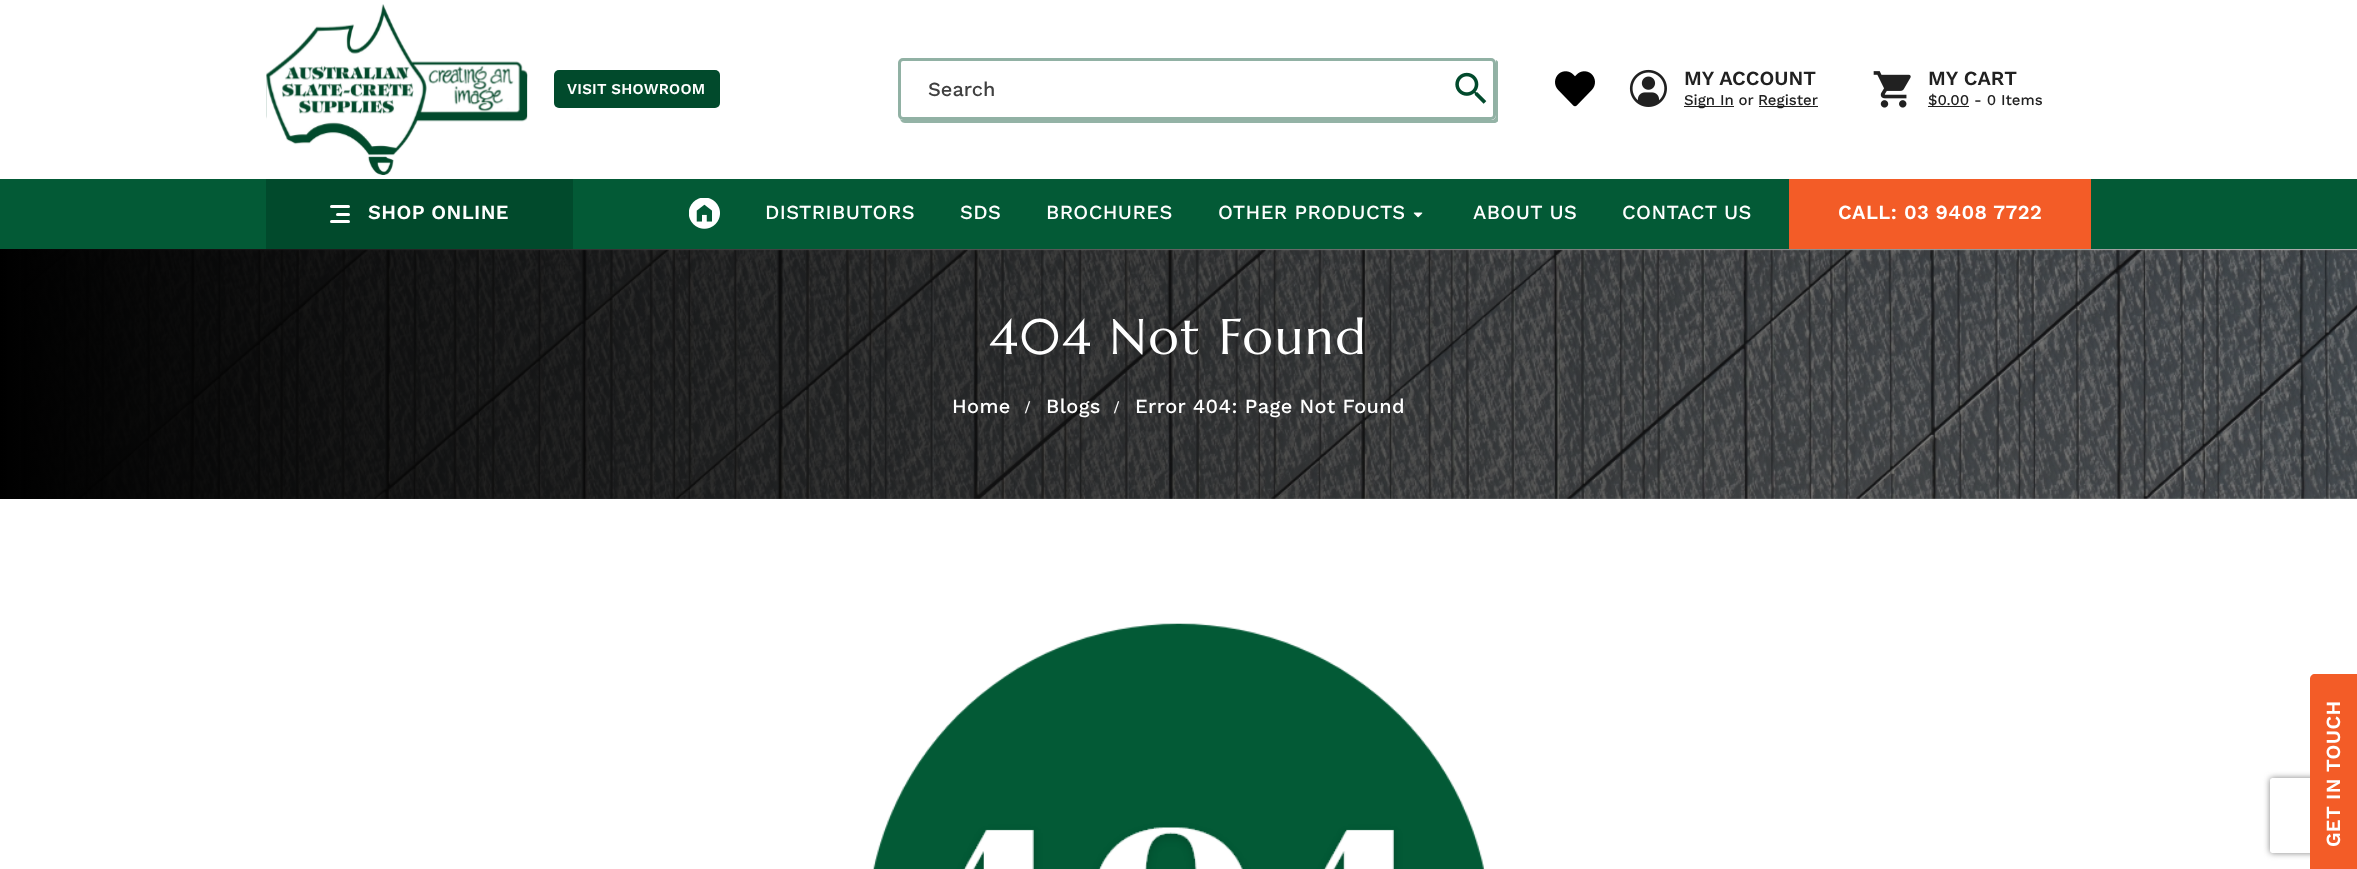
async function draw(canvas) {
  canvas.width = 2357
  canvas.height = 869
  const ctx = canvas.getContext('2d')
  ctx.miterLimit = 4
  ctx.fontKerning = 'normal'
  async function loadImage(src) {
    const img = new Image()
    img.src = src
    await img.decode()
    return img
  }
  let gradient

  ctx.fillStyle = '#fff'
  ctx.fillRect(0, 0, 2357, 869)
  ctx.drawImage(await loadImage('image0.png'), 266, 4, 262, 171)
  ctx.fillStyle = '#014a2c'
  ctx.beginPath()
  ctx.roundRect(554, 70, 166, 38, 5)
  ctx.fill()
  ctx.letterSpacing = '0.25px'
  ctx.font = '600 15px Work Sans'
  ctx.fillStyle = '#fff'
  ctx.fillText('VISIT SHOWROOM', 567, 94)
  ctx.save()
  ctx.beginPath()
  ctx.rect(898, 55, 600, 68)
  ctx.clip()
  ctx.fillStyle = '#94b3a6'
  ctx.beginPath()
  ctx.moveTo(900, 119)
  ctx.bezierCurveTo(901, 122, 903, 123, 905, 123)
  ctx.lineTo(1494, 123)
  ctx.bezierCurveTo(1497, 123, 1499, 121, 1499, 118)
  ctx.lineTo(1499, 65)
  ctx.bezierCurveTo(1499, 63, 1498, 61, 1496, 60)
  ctx.lineTo(1496, 62)
  ctx.lineTo(1496, 115)
  ctx.bezierCurveTo(1496, 118, 1494, 120, 1491, 120)
  ctx.lineTo(902, 120)
  ctx.closePath()
  ctx.fill()
  ctx.restore()
  ctx.beginPath()
  ctx.roundRect(899.5, 59.5, 595, 59, 3.5)
  ctx.fill()
  ctx.strokeStyle = '#91b1a4'
  ctx.lineWidth = 3
  ctx.stroke()
  ctx.letterSpacing = '0px'
  ctx.font = '500 20px Work Sans'
  ctx.fillStyle = '#404040'
  ctx.fillText('Search', 928, 96)
  ctx.drawImage(await loadImage('image1.png'), 1455, 72, 32, 32)
  ctx.drawImage(await loadImage('image2.png'), 1555, 71, 40, 36)
  ctx.drawImage(await loadImage('image3.png'), 1629, 69, 38, 38)
  ctx.font = '600 20px Work Sans'
  ctx.fillStyle = '#212121'
  ctx.fillText('MY ACCOUNT', 1684, 85)
  ctx.fillRect(1684, 106, 50, 1)
  ctx.font = '500 15px Work Sans'
  ctx.fillText('Sign In or', 1684, 105)
  ctx.fillRect(1759, 106, 59, 1)
  ctx.fillText('Register', 1758, 105)
  ctx.drawImage(await loadImage('image4.png'), 1873, 71, 38, 37)
  ctx.font = '600 20px Work Sans'
  ctx.fillText('MY CART', 1928, 85)
  ctx.fillRect(1928, 106, 41, 1)
  ctx.font = '500 15px Work Sans'
  ctx.fillText('$0.00 - 0 Items', 1928, 105)
  ctx.fillStyle = '#035a36'
  ctx.fillRect(0, 179, 2357, 70)
  ctx.fillStyle = '#014a2c'
  ctx.fillRect(266, 179, 307, 70)
  ctx.fillStyle = '#fff'
  ctx.beginPath()
  ctx.roundRect(330, 205, 20, 3, 1.5)
  ctx.fill()
  ctx.beginPath()
  ctx.roundRect(336, 213, 14, 3, 1.5)
  ctx.fill()
  ctx.beginPath()
  ctx.roundRect(330, 220, 20, 3, 1.5)
  ctx.fill()
  ctx.letterSpacing = '0.4px'
  ctx.font = '600 20px Work Sans'
  ctx.fillText('SHOP ONLINE', 368, 219)
  ctx.drawImage(await loadImage('image5.png'), 689, 198, 31, 31)
  ctx.font = '500 20px Work Sans'
  ctx.fillText('DISTRIBUTORS', 765, 219)
  ctx.fillText('SDS', 960, 219)
  ctx.fillText('BROCHURES', 1046, 219)
  ctx.fillText('OTHER PRODUCTS', 1218, 219)
  ctx.drawImage(await loadImage('image6.png'), 1413, 212, 10, 6)
  ctx.fillText('ABOUT US', 1473, 219)
  ctx.fillText('CONTACT US', 1622, 219)
  ctx.fillStyle = '#f35c27'
  ctx.fillRect(1789, 179, 302, 70)
  ctx.font = '600 20px Work Sans'
  ctx.fillStyle = '#fff'
  ctx.fillText('CALL:', 1838, 219)
  ctx.fillText('03 9408 7722', 1904, 219)
  ctx.drawImage(await loadImage('image7.png'), 21, 249, 2336, 250)
  gradient = ctx.createLinearGradient(0, 374, 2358, 374)
  gradient.addColorStop(0, '#000')
  gradient.addColorStop(1, '#2f2f2f59')
  ctx.fillStyle = gradient
  ctx.fillRect(0, 249, 2357, 250)
  ctx.letterSpacing = '2px'
  ctx.font = '50px Marcellus'
  ctx.fillStyle = '#fff'
  ctx.fillText('404 Not Found', 989, 354)
  ctx.letterSpacing = '0.4px'
  ctx.font = '500 20px Work Sans'
  ctx.fillText('Home', 952, 413)
  ctx.font = 'bold 18px Liberation Serif'
  ctx.fillText('/', 1025, 413)
  ctx.font = '500 20px Work Sans'
  ctx.fillText('Blogs', 1046, 413)
  ctx.font = 'bold 18px Liberation Serif'
  ctx.fillText('/', 1114, 413)
  ctx.font = '500 20px Work Sans'
  ctx.fillText('Error 404: Page Not Found', 1135, 413)
  ctx.drawImage(await loadImage('image8.png'), 873, 623, 612, 246)
  ctx.save()
  ctx.beginPath()
  ctx.moveTo(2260, 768)
  ctx.lineTo(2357, 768)
  ctx.lineTo(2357, 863)
  ctx.lineTo(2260, 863)
  ctx.closePath()
  ctx.moveTo(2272.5, 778)
  ctx.lineTo(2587.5, 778)
  ctx.bezierCurveTo(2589, 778, 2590, 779, 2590, 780.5)
  ctx.lineTo(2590, 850.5)
  ctx.bezierCurveTo(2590, 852, 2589, 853, 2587.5, 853)
  ctx.lineTo(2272.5, 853)
  ctx.bezierCurveTo(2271, 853, 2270, 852, 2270, 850.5)
  ctx.lineTo(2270, 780.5)
  ctx.bezierCurveTo(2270, 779, 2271, 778, 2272.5, 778)
  ctx.closePath()
  ctx.clip('evenodd')
  ctx.fillStyle = '#808080'
  ctx.filter = 'blur(3px)'
  ctx.beginPath()
  ctx.roundRect(2270, 778, 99, 75, 2.5)
  ctx.fill()
  ctx.filter = 'none'
  ctx.restore()
  ctx.fillStyle = '#f35c27'
  ctx.beginPath()
  ctx.moveTo(2310, 869)
  ctx.lineTo(2310, 679)
  ctx.bezierCurveTo(2310, 676, 2312, 674, 2315, 674)
  ctx.lineTo(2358, 674)
  ctx.lineTo(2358, 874)
  ctx.lineTo(2315, 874)
  ctx.bezierCurveTo(2312, 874, 2310, 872, 2310, 869)
  ctx.closePath()
  ctx.fill()
  ctx.font = '600 20px Work Sans'
  ctx.fillStyle = '#fff'
  ctx.save()
  ctx.translate(2340, 847)
  ctx.rotate(-90 * Math.PI / 180)
  ctx.fillText('GET IN TOUCH', 0, 0)
  ctx.restore()
}

draw(document.querySelector('canvas'))
